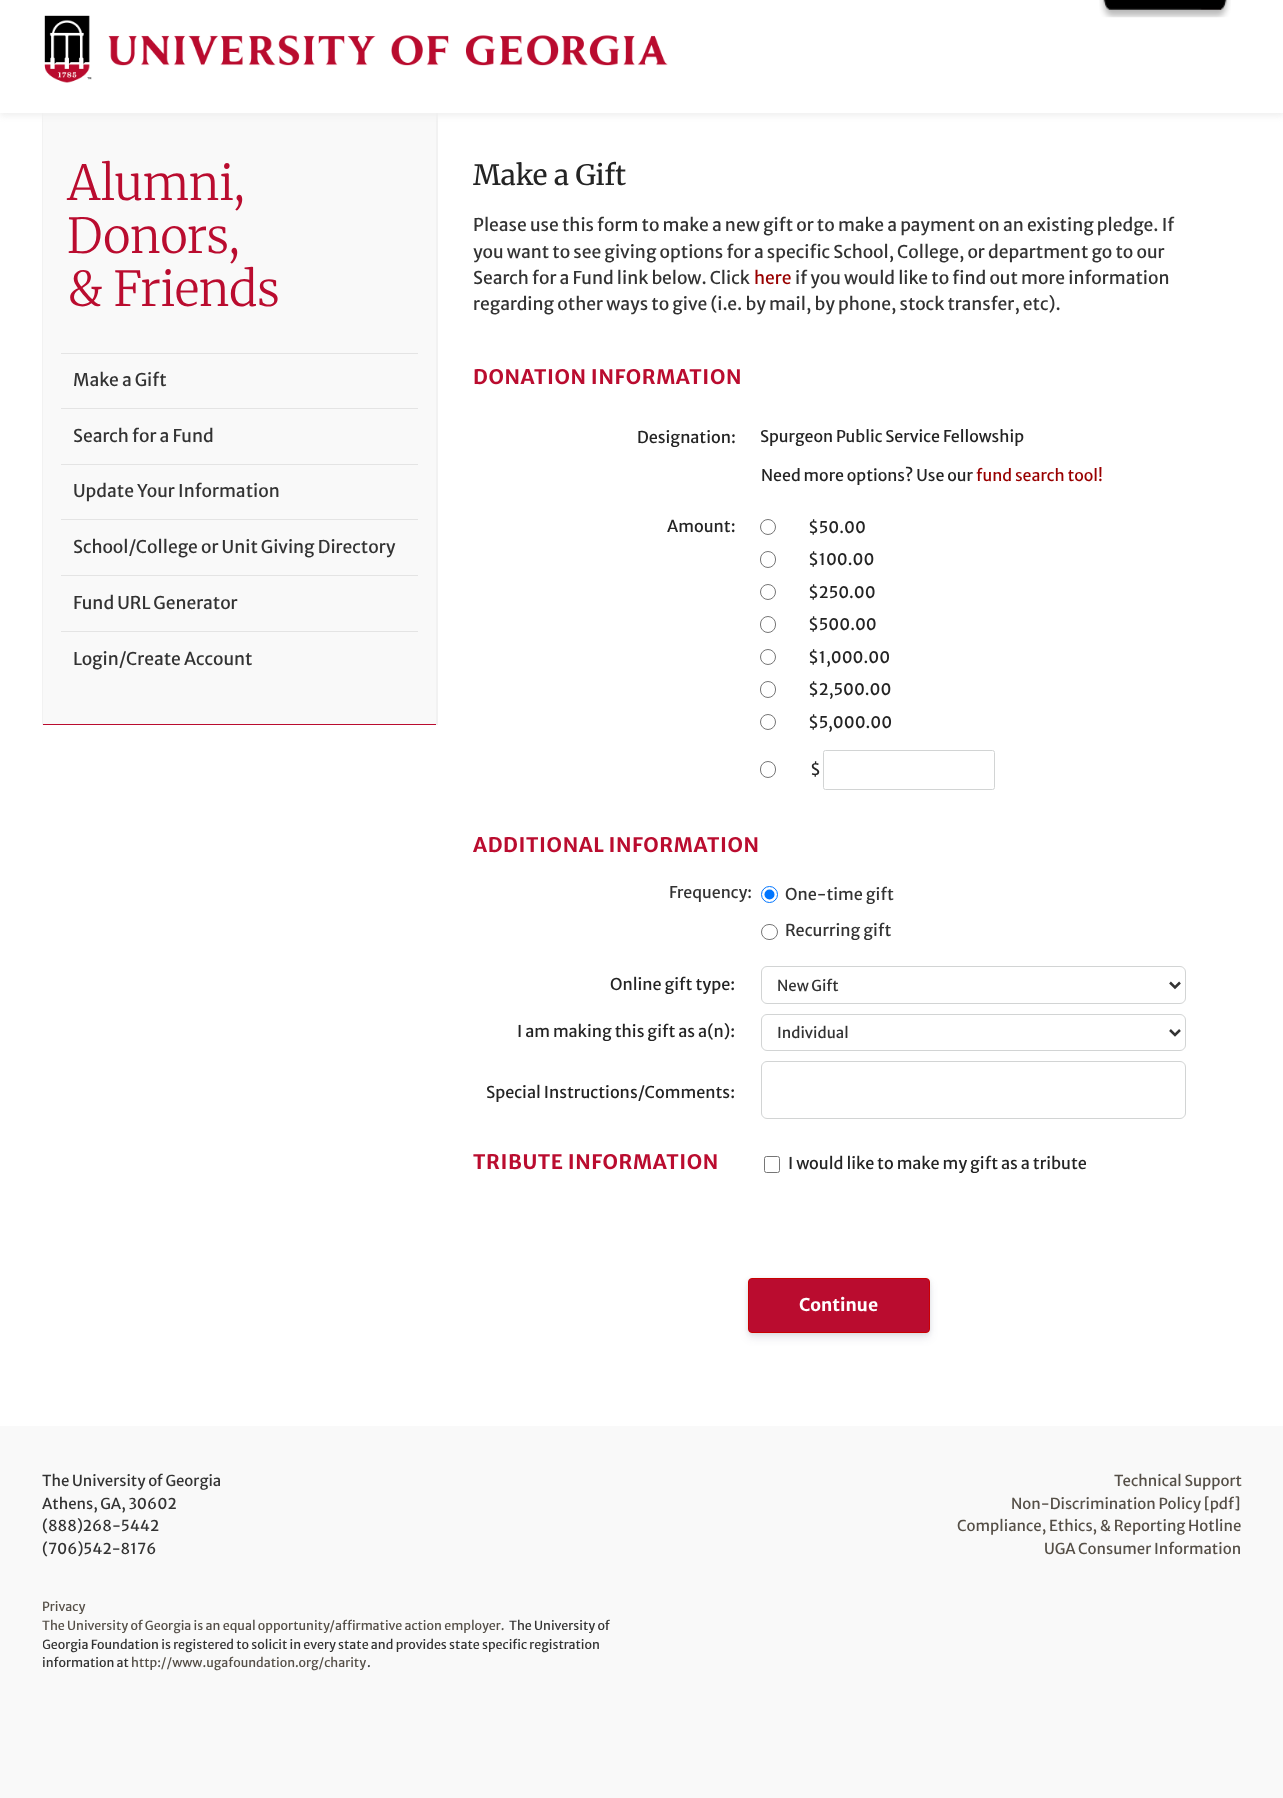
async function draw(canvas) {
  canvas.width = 1283
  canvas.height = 1798
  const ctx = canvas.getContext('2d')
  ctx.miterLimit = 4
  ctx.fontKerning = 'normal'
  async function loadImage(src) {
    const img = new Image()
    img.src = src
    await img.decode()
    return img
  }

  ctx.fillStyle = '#fff'
  ctx.fillRect(0, 0, 1283, 1798)
  ctx.fillStyle = '#f2f2f2'
  ctx.fillRect(42, 113, 396, 612)
  ctx.fillStyle = '#f9f9f9'
  ctx.fillRect(43, 113, 393, 611)
  ctx.fillStyle = '#efefef'
  ctx.filter = 'blur(3px)'
  ctx.beginPath()
  ctx.rect(0, -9, 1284, 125)
  ctx.fill()
  ctx.filter = 'none'
  ctx.fillStyle = '#fff'
  ctx.fillRect(0, 0, 1283, 113)
  ctx.drawImage(await loadImage('image0.png'), 44, 15, 624, 68)
  ctx.drawImage(await loadImage('image1.png'), 1099, 0, 132, 18)
  ctx.fillStyle = '#ba0c2f'
  ctx.fillRect(43, 724, 393, 1)
  ctx.font = '300 48px Merriweather'
  ctx.fillText('Alumni,', 67, 200)
  ctx.fillText('Donors,', 67, 253)
  ctx.fillText('& Friends', 67, 306)
  ctx.fillStyle = '#e4e4e4'
  ctx.fillRect(61, 353, 357, 1)
  ctx.font = '17.5px Merriweather Sans'
  ctx.fillStyle = '#333'
  ctx.fillText('Make a Gift', 73, 386)
  ctx.fillStyle = '#e4e4e4'
  ctx.fillRect(61, 408, 357, 1)
  ctx.fillStyle = '#333'
  ctx.fillText('Search for a Fund', 73, 442)
  ctx.fillStyle = '#e4e4e4'
  ctx.fillRect(61, 464, 357, 1)
  ctx.fillStyle = '#333'
  ctx.fillText('Update Your Information', 73, 497)
  ctx.fillStyle = '#e4e4e4'
  ctx.fillRect(61, 519, 357, 1)
  ctx.fillStyle = '#333'
  ctx.fillText('School/College or Unit Giving Directory', 73, 553)
  ctx.fillStyle = '#e4e4e4'
  ctx.fillRect(61, 575, 357, 1)
  ctx.fillStyle = '#333'
  ctx.fillText('Fund URL Generator', 73, 609)
  ctx.fillStyle = '#e4e4e4'
  ctx.fillRect(61, 631, 357, 1)
  ctx.fillStyle = '#333'
  ctx.fillText('Login/Create Account', 73, 665)
  ctx.font = '500 28px Merriweather'
  ctx.fillStyle = '#242424'
  ctx.fillText('Make a Gift', 473, 185)
  ctx.font = '17.5px Merriweather Sans'
  ctx.fillStyle = '#333'
  ctx.fillText('Please use this form to make a new gift or to make a payment on an existing pledge. If', 473, 231)
  ctx.fillText('you want to see giving options for a specific School, College, or department go to our', 473, 258)
  ctx.fillText('Search for a Fund link below. Click', 473, 284)
  ctx.fillStyle = '#900'
  ctx.fillText('here', 754, 284)
  ctx.fillStyle = '#333'
  ctx.fillText('if you would like to find out more information', 795, 284)
  ctx.fillText('regarding other ways to give (i.e. by mail, by phone, stock transfer, etc).', 473, 310)
  ctx.letterSpacing = '0.6px'
  ctx.font = 'bold 20px Merriweather Sans'
  ctx.fillStyle = '#ba0c2f'
  ctx.fillText('DONATION INFORMATION', 473, 384)
  ctx.letterSpacing = '0px'
  ctx.font = '16.25px Merriweather Sans'
  ctx.fillStyle = '#242424'
  ctx.fillText('Designation:', 637, 443)
  ctx.font = '16px Merriweather Sans'
  ctx.fillText('Spurgeon Public Service Fellowship', 760, 442)
  ctx.fillText('Need more options? Use our', 761, 481)
  ctx.fillStyle = '#900'
  ctx.fillText('fund search tool!', 976, 481)
  ctx.font = '16.25px Merriweather Sans'
  ctx.fillStyle = '#242424'
  ctx.fillText('Amount:', 667, 532)
  ctx.beginPath()
  ctx.arc(768, 527, 7.5, 0, 2 * Math.PI)
  ctx.strokeStyle = '#767676'
  ctx.stroke()
  ctx.font = '16px Merriweather Sans'
  ctx.fillText('$50.00', 808, 533)
  ctx.beginPath()
  ctx.roundRect(760.5, 551.5, 15, 16, 7.5)
  ctx.stroke()
  ctx.fillText('$100.00', 808, 565)
  ctx.beginPath()
  ctx.arc(768, 592, 7.5, 0, 2 * Math.PI)
  ctx.stroke()
  ctx.fillText('$250.00', 808, 598)
  ctx.beginPath()
  ctx.roundRect(760.5, 616.5, 15, 16, 7.5)
  ctx.stroke()
  ctx.fillText('$500.00', 808, 630)
  ctx.beginPath()
  ctx.arc(768, 657, 7.5, 0, 2 * Math.PI)
  ctx.stroke()
  ctx.fillText('$1,000.00', 808, 663)
  ctx.beginPath()
  ctx.roundRect(760.5, 681.5, 15, 16, 7.5)
  ctx.stroke()
  ctx.fillText('$2,500.00', 808, 695)
  ctx.beginPath()
  ctx.arc(768, 722, 7.5, 0, 2 * Math.PI)
  ctx.stroke()
  ctx.fillText('$5,000.00', 808, 728)
  ctx.beginPath()
  ctx.roundRect(760.5, 761.5, 15, 16, 7.5)
  ctx.stroke()
  ctx.fillText('$', 810, 775)
  ctx.beginPath()
  ctx.roundRect(823.5, 750.5, 171, 39, 2)
  ctx.strokeStyle = '#d2d4d4'
  ctx.stroke()
  ctx.letterSpacing = '0.6px'
  ctx.font = 'bold 20px Merriweather Sans'
  ctx.fillStyle = '#ba0c2f'
  ctx.fillText('ADDITIONAL INFORMATION', 473, 852)
  ctx.letterSpacing = '0px'
  ctx.font = '16px Merriweather Sans'
  ctx.fillStyle = '#333'
  ctx.fillText('Frequency:', 669, 898)
  ctx.beginPath()
  ctx.arc(769.5, 894.5, 8, 0, 2 * Math.PI)
  ctx.strokeStyle = '#0075ff'
  ctx.stroke()
  ctx.fillStyle = '#0075ff'
  ctx.beginPath()
  ctx.arc(769.5, 894.5, 5, 0, 2 * Math.PI)
  ctx.fill()
  ctx.font = '16.25px Merriweather Sans'
  ctx.fillStyle = '#333'
  ctx.fillText('One-time gift', 785, 900)
  ctx.beginPath()
  ctx.roundRect(761.5, 924.5, 16, 15, 7.5)
  ctx.strokeStyle = '#767676'
  ctx.stroke()
  ctx.fillText('Recurring gift', 785, 936)
  ctx.fillStyle = '#242424'
  ctx.fillText('Online gift type:', 610, 990)
  ctx.beginPath()
  ctx.roundRect(761.5, 966.5, 424, 37, 5.5)
  ctx.strokeStyle = '#d2d4d4'
  ctx.stroke()
  ctx.beginPath()
  ctx.moveTo(1170, 982.5)
  ctx.lineTo(1175, 987.5)
  ctx.lineTo(1180, 982.5)
  ctx.strokeStyle = '#333'
  ctx.lineWidth = 2.5
  ctx.stroke()
  ctx.font = '15px Merriweather Sans'
  ctx.fillStyle = '#333'
  ctx.fillText('New Gift', 777, 991)
  ctx.font = '16.25px Merriweather Sans'
  ctx.fillStyle = '#242424'
  ctx.fillText('I am making this gift as a(n):', 517, 1037)
  ctx.beginPath()
  ctx.roundRect(761.5, 1014.5, 424, 36, 5.5)
  ctx.strokeStyle = '#d2d4d4'
  ctx.lineWidth = 1
  ctx.stroke()
  ctx.beginPath()
  ctx.moveTo(1170, 1030)
  ctx.lineTo(1175, 1035)
  ctx.lineTo(1180, 1030)
  ctx.strokeStyle = '#333'
  ctx.lineWidth = 2.5
  ctx.stroke()
  ctx.font = '15px Merriweather Sans'
  ctx.fillStyle = '#333'
  ctx.fillText('Individual', 777, 1038)
  ctx.font = '16.25px Merriweather Sans'
  ctx.fillStyle = '#242424'
  ctx.fillText('Special Instructions/Comments:', 486, 1098)
  ctx.beginPath()
  ctx.roundRect(761.5, 1061.5, 424, 57, 5.5)
  ctx.strokeStyle = '#d2d4d4'
  ctx.lineWidth = 1
  ctx.stroke()
  ctx.letterSpacing = '0.6px'
  ctx.font = 'bold 20px Merriweather Sans'
  ctx.fillStyle = '#ba0c2f'
  ctx.fillText('TRIBUTE INFORMATION', 473, 1169)
  ctx.beginPath()
  ctx.roundRect(764.5, 1156.5, 15, 16, 2)
  ctx.strokeStyle = '#767676'
  ctx.stroke()
  ctx.letterSpacing = '0px'
  ctx.font = '16.25px Merriweather Sans'
  ctx.fillStyle = '#242424'
  ctx.fillText('I would like to make my gift as a tribute', 788, 1169)
  ctx.fillStyle = '#00000014'
  ctx.filter = 'blur(2px)'
  ctx.beginPath()
  ctx.roundRect(748, 1279, 182, 55, 4)
  ctx.fill()
  ctx.filter = 'none'
  ctx.fillStyle = '#32325d1c'
  ctx.filter = 'blur(4px)'
  ctx.beginPath()
  ctx.roundRect(748, 1283, 182, 55, 4)
  ctx.fill()
  ctx.filter = 'none'
  ctx.fillStyle = '#ba0c2f'
  ctx.beginPath()
  ctx.roundRect(748.5, 1278.5, 181, 54, 3.5)
  ctx.fill()
  ctx.strokeStyle = '#ca0000'
  ctx.stroke()
  ctx.font = 'bold 17.5px Merriweather Sans'
  ctx.fillStyle = '#fff'
  ctx.fillText('Continue', 799, 1311)
  ctx.fillStyle = '#f9f9f9'
  ctx.fillRect(0, 1426, 1283, 372)
  ctx.font = '15px Merriweather Sans'
  ctx.fillStyle = '#333'
  ctx.fillText('The University of Georgia', 42, 1486)
  ctx.fillText('Athens, GA, 30602', 42, 1509)
  ctx.fillText('(888)268-5442', 42, 1531)
  ctx.fillText('(706)542-8176', 42, 1554)
  ctx.font = '12.5px Merriweather Sans'
  ctx.fillStyle = '#554f47'
  ctx.fillText('Privacy', 42, 1611)
  ctx.fillText('The University of Georgia is an equal opportunity/affirmative action employer.', 42, 1630)
  ctx.fillStyle = '#333'
  ctx.fillText('The University of', 509, 1630)
  ctx.save()
  ctx.beginPath()
  ctx.rect(43, 1579, 600, 112)
  ctx.clip()
  ctx.fillText('Georgia Foundation is registered to solicit in every state and provides state specific registration', 42, 1649)
  ctx.restore()
  ctx.fillText('information at', 42, 1667)
  ctx.fillStyle = '#554f47'
  ctx.fillText('http://www.ugafoundation.org/charity', 131, 1667)
  ctx.fillStyle = '#333'
  ctx.fillText('.', 367, 1667)
  ctx.font = '15px Merriweather Sans'
  ctx.fillStyle = '#554f47'
  ctx.fillText('Technical Support', 1114, 1486)
  ctx.fillText('Non-Discrimination Policy [pdf]', 1011, 1509)
  ctx.fillText('Compliance, Ethics, & Reporting Hotline', 957, 1531)
  ctx.fillText('UGA Consumer Information', 1044, 1554)
}

draw(document.querySelector('canvas'))
